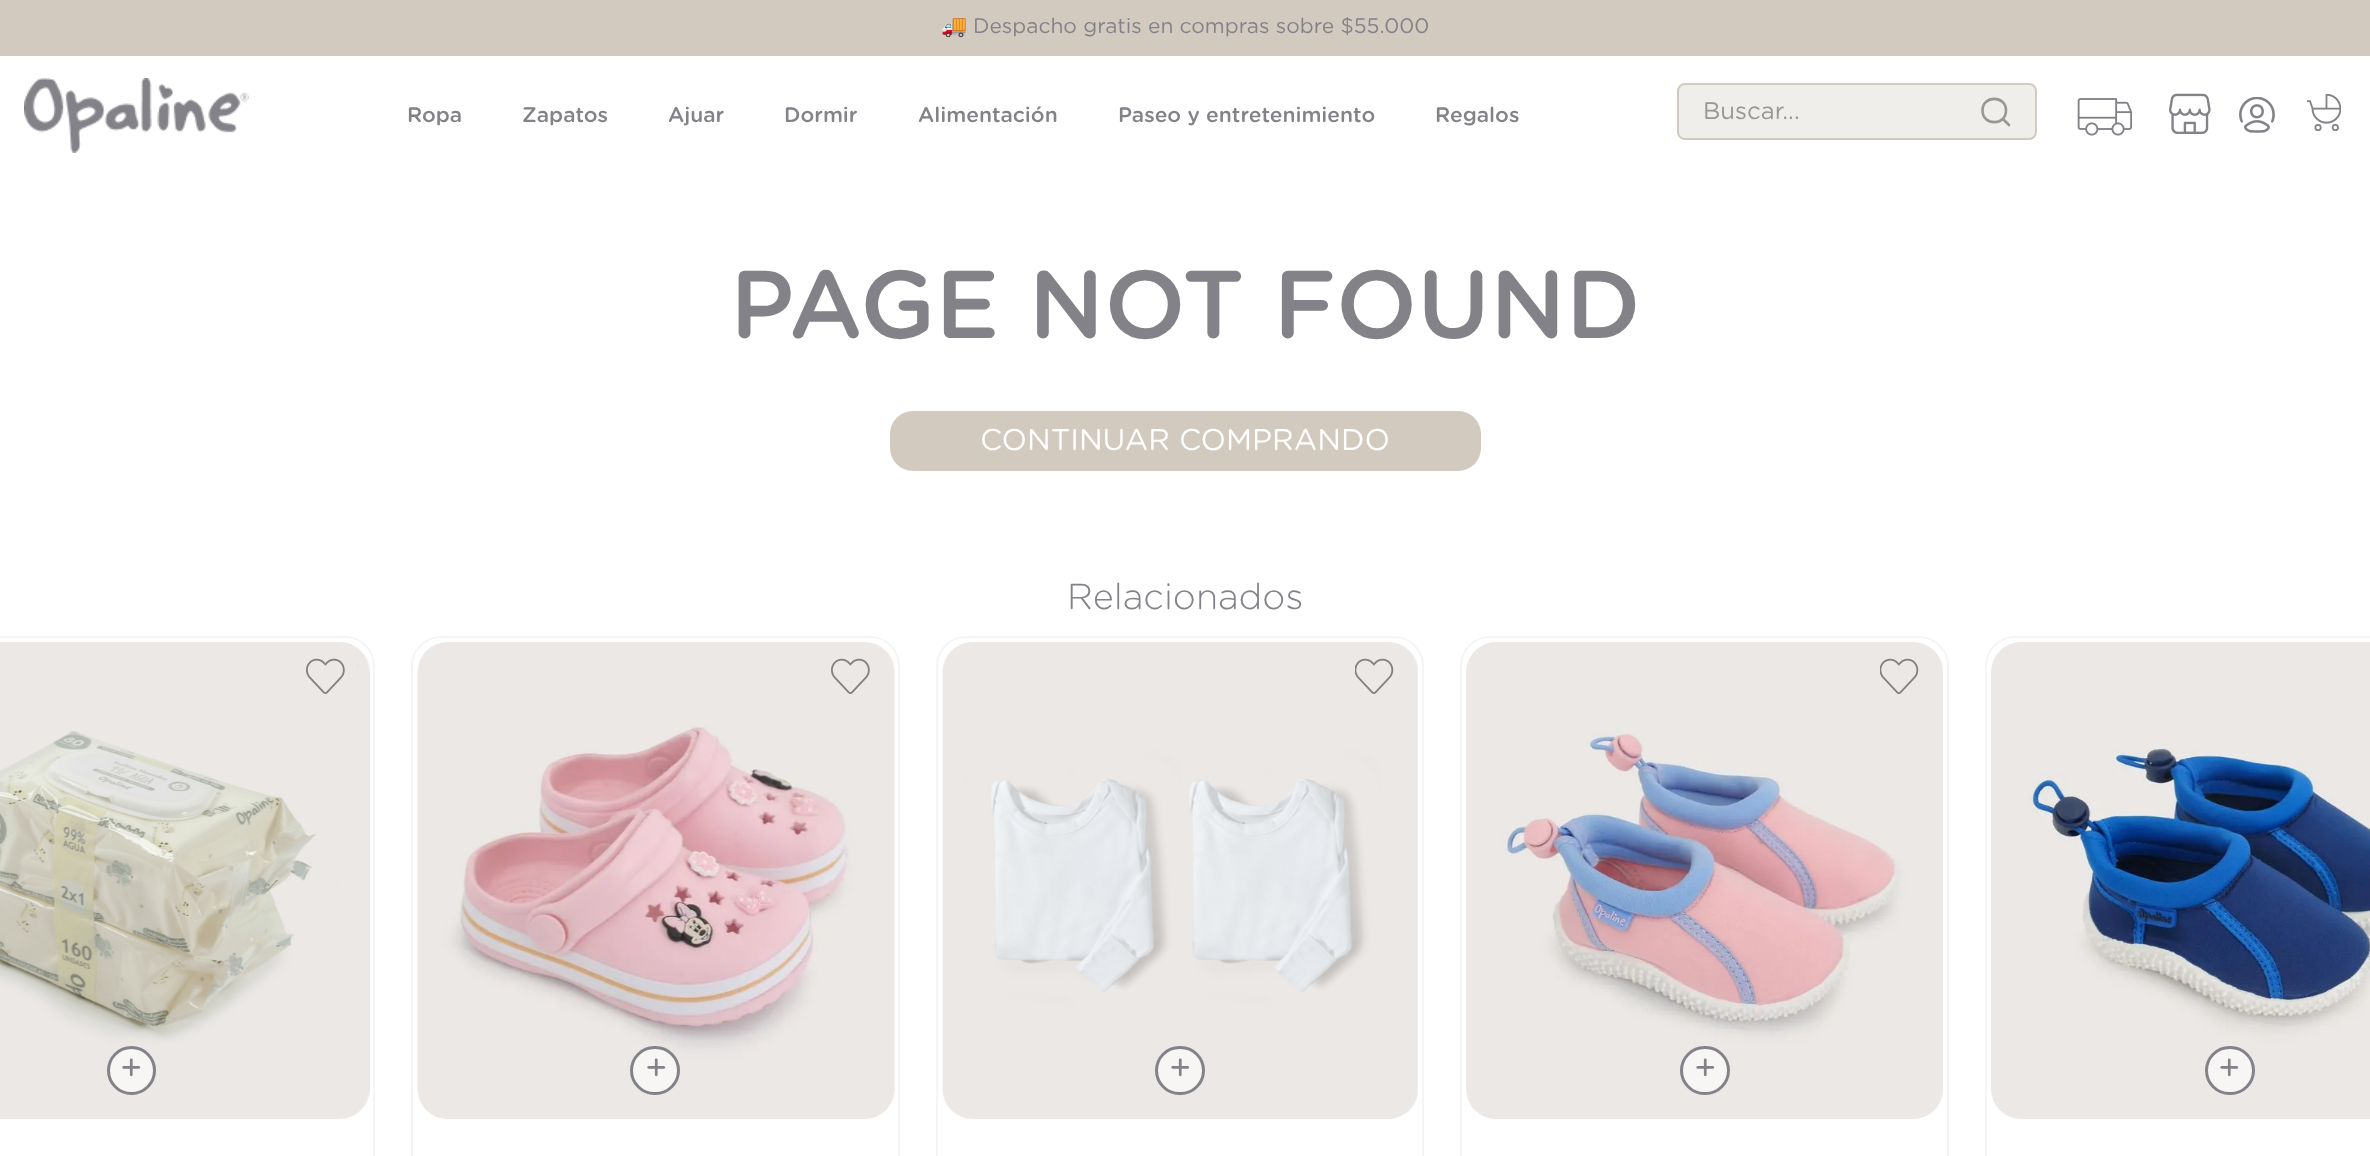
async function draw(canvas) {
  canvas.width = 2370
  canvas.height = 1156
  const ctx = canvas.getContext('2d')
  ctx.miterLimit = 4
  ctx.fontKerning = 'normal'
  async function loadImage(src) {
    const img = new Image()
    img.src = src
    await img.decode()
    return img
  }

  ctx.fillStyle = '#fff'
  ctx.fillRect(0, 0, 2370, 1156)
  ctx.fillStyle = '#d3cabf'
  ctx.fillRect(0, 0, 2370, 56)
  ctx.save()
  ctx.beginPath()
  ctx.rect(941, 0, 489, 56)
  ctx.clip()
  ctx.font = '21px Noto Color Emoji'
  ctx.fillStyle = '#828288'
  ctx.fillText('🚚', 941, 33)
  ctx.restore()
  ctx.font = '21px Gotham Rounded'
  ctx.fillStyle = '#828288'
  ctx.fillText('Despacho gratis en compras sobre $55.000', 973, 33)
  ctx.drawImage(await loadImage('image0.png'), 24, 78, 225, 75)
  ctx.font = '500 21px Gotham Rounded'
  ctx.fillText('Ropa', 407, 122)
  ctx.fillText('Zapatos', 522, 122)
  ctx.fillText('Ajuar', 668, 122)
  ctx.fillText('Dormir', 784, 122)
  ctx.fillText('Alimentación', 918, 122)
  ctx.fillText('Paseo y entretenimiento', 1118, 122)
  ctx.fillText('Regalos', 1435, 122)
  ctx.fillStyle = '#f0eeea'
  ctx.beginPath()
  ctx.roundRect(1678, 84, 358, 55, 7)
  ctx.fill()
  ctx.strokeStyle = '#d3cabf'
  ctx.lineWidth = 2
  ctx.stroke()
  ctx.font = '24px Gotham Rounded'
  ctx.fillStyle = '#979797'
  ctx.fillText('Buscar...', 1703, 119)
  ctx.beginPath()
  ctx.moveTo(2003, 119)
  ctx.lineTo(2009, 125)
  ctx.moveTo(2006, 110.5)
  ctx.bezierCurveTo(2006, 95, 1982.5, 95, 1982.5, 110.5)
  ctx.bezierCurveTo(1982.5, 126, 2006, 126, 2006, 110.5)
  ctx.strokeStyle = '#979797'
  ctx.lineWidth = 2.6
  ctx.lineCap = 'round'
  ctx.lineJoin = 'round'
  ctx.stroke()
  ctx.drawImage(await loadImage('image1.png'), 2077, 98, 56, 38)
  ctx.drawImage(await loadImage('image2.png'), 2169, 93, 42, 41)
  ctx.drawImage(await loadImage('image3.png'), 2239, 97, 36, 36)
  ctx.drawImage(await loadImage('image4.png'), 2307, 94, 34, 37)
  ctx.font = '500 96px Gotham Rounded'
  ctx.fillStyle = '#828288'
  ctx.fillText('PAGE NOT FOUND', 730, 338)
  ctx.fillStyle = '#d3cabf'
  ctx.beginPath()
  ctx.roundRect(890, 411, 591, 60, 23)
  ctx.fill()
  ctx.font = '30px Gotham Rounded'
  ctx.fillStyle = '#fff'
  ctx.fillText('CONTINUAR COMPRANDO', 980, 450)
  ctx.font = '300 36px Gotham Rounded'
  ctx.fillStyle = '#828288'
  ctx.fillText('Relacionados', 1067, 609)
  ctx.beginPath()
  ctx.roundRect(-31, 637, 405, 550, 29)
  ctx.strokeStyle = '#f5f5f5'
  ctx.lineWidth = 2
  ctx.lineJoin = 'miter'
  ctx.stroke()
  ctx.drawImage(await loadImage('image6.png'), 0, 642, 370, 477)
  ctx.drawImage(await loadImage('image5.png'), 306, 658, 39, 36)
  ctx.fillStyle = '#f7f6f5'
  ctx.beginPath()
  ctx.arc(131.5, 1070.5, 23, 0, 2 * Math.PI)
  ctx.fill()
  ctx.strokeStyle = '#828288'
  ctx.lineWidth = 3
  ctx.stroke()
  ctx.font = '36px Gotham Rounded'
  ctx.fillStyle = '#828288'
  ctx.fillText('+', 120, 1080)
  ctx.beginPath()
  ctx.roundRect(412, 637, 487, 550, 29)
  ctx.strokeStyle = '#f5f5f5'
  ctx.lineWidth = 2
  ctx.stroke()
  ctx.drawImage(await loadImage('image8.png'), 417, 642, 478, 477)
  ctx.drawImage(await loadImage('image7.png'), 831, 658, 39, 36)
  ctx.fillStyle = '#ffffff99'
  ctx.beginPath()
  ctx.roundRect(631.5, 1047.5, 47, 46, 23)
  ctx.fill()
  ctx.strokeStyle = '#828288'
  ctx.lineWidth = 3
  ctx.stroke()
  ctx.fillStyle = '#828288'
  ctx.fillText('+', 645, 1080)
  ctx.beginPath()
  ctx.roundRect(937, 637, 486, 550, 29)
  ctx.strokeStyle = '#f5f5f5'
  ctx.lineWidth = 2
  ctx.stroke()
  ctx.drawImage(await loadImage('image10.png'), 942, 642, 476, 477)
  ctx.drawImage(await loadImage('image9.png'), 1355, 658, 39, 36)
  ctx.fillStyle = '#f7f6f5'
  ctx.beginPath()
  ctx.roundRect(1156.5, 1047.5, 47, 46, 23)
  ctx.fill()
  ctx.strokeStyle = '#828288'
  ctx.lineWidth = 3
  ctx.stroke()
  ctx.fillStyle = '#828288'
  ctx.fillText('+', 1169, 1080)
  ctx.beginPath()
  ctx.roundRect(1461, 637, 487, 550, 29)
  ctx.strokeStyle = '#f5f5f5'
  ctx.lineWidth = 2
  ctx.stroke()
  ctx.drawImage(await loadImage('image12.png'), 1466, 642, 477, 477)
  ctx.drawImage(await loadImage('image11.png'), 1880, 658, 39, 36)
  ctx.fillStyle = '#f7f6f5'
  ctx.beginPath()
  ctx.roundRect(1681.5, 1047.5, 47, 46, 23)
  ctx.fill()
  ctx.strokeStyle = '#828288'
  ctx.lineWidth = 3
  ctx.stroke()
  ctx.fillStyle = '#828288'
  ctx.fillText('+', 1694, 1080)
  ctx.beginPath()
  ctx.roundRect(1986, 637, 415, 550, 29)
  ctx.strokeStyle = '#f5f5f5'
  ctx.lineWidth = 2
  ctx.stroke()
  ctx.drawImage(await loadImage('image13.png'), 1991, 642, 379, 477)
  ctx.fillStyle = '#f7f6f5'
  ctx.beginPath()
  ctx.roundRect(2206.5, 1047.5, 47, 46, 23)
  ctx.fill()
  ctx.strokeStyle = '#828288'
  ctx.lineWidth = 3
  ctx.stroke()
  ctx.fillStyle = '#828288'
  ctx.fillText('+', 2218, 1080)
}

draw(document.querySelector('canvas'))
